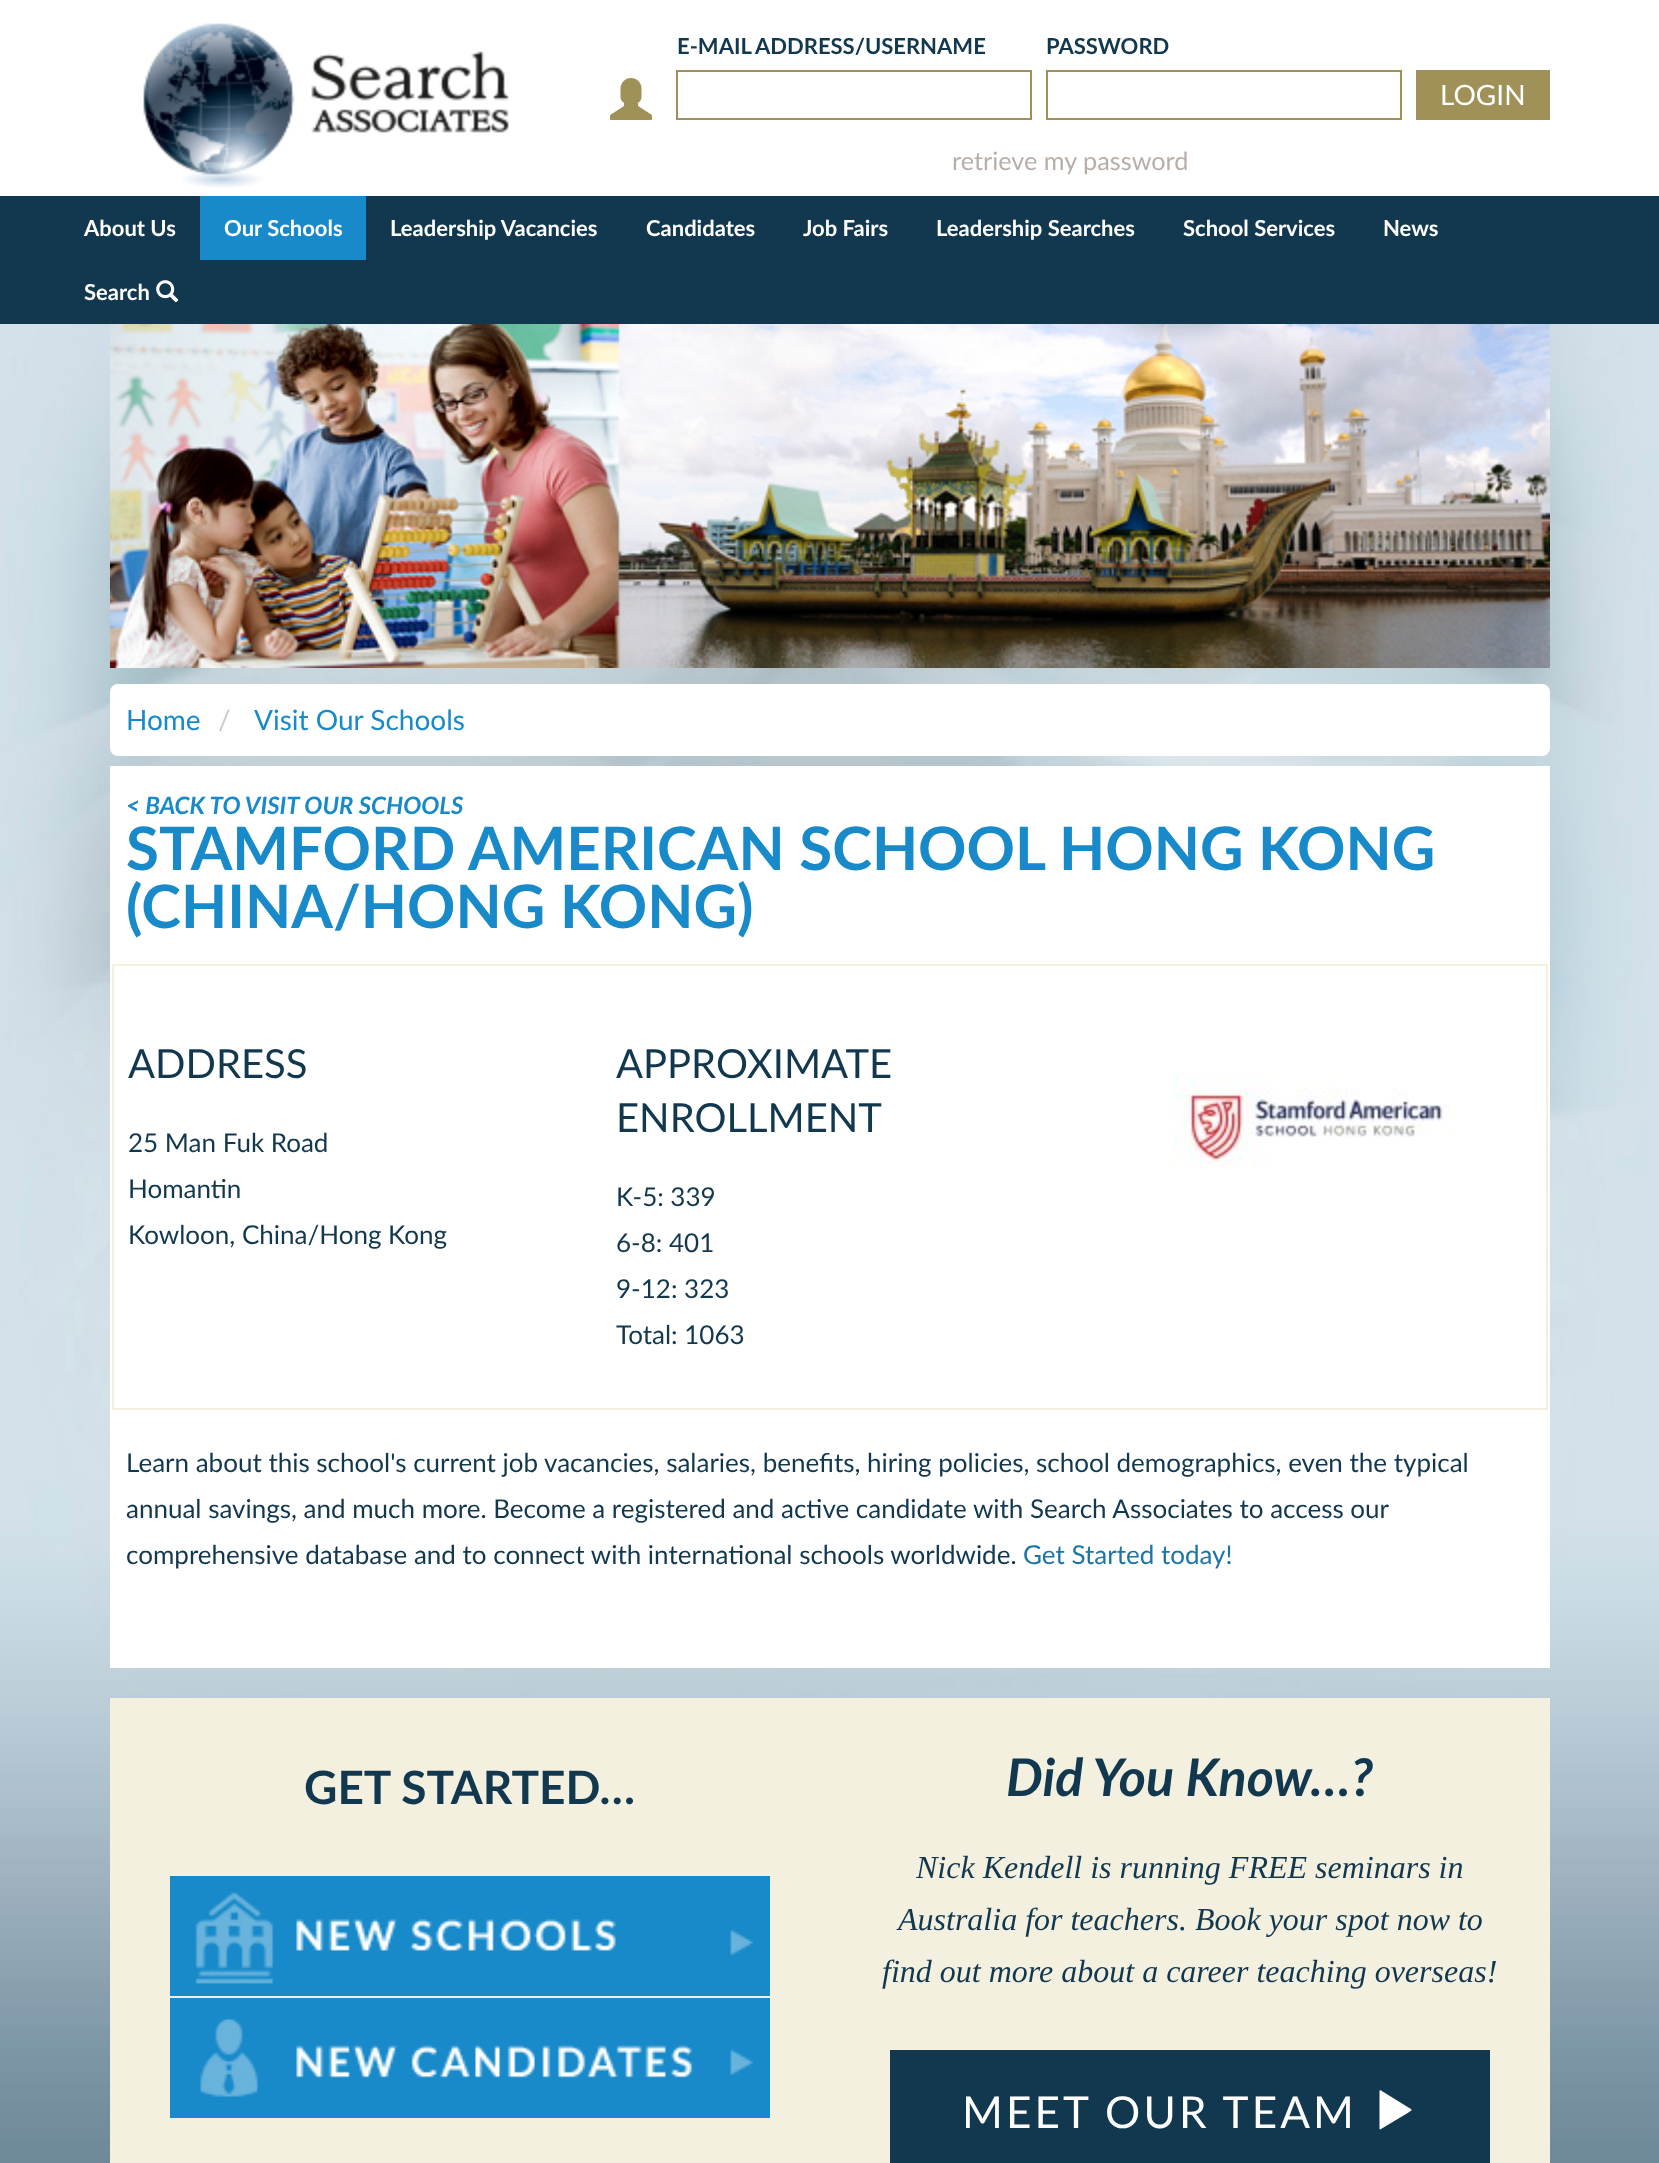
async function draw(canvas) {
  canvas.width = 1659
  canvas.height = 2163
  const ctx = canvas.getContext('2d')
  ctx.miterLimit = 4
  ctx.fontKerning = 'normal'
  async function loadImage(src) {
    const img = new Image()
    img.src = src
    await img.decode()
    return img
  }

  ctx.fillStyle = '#fff'
  ctx.fillRect(0, 0, 1659, 2163)
  ctx.drawImage(await loadImage('image0.png'), 143, 23, 366, 165)
  ctx.font = 'bold 22px Lato'
  ctx.fillStyle = '#12384f'
  ctx.fillText('E-MAIL', 677, 54)
  ctx.fillText('ADDRESS/USERNAME', 755, 54)
  ctx.strokeStyle = '#a09158'
  ctx.lineWidth = 2
  ctx.strokeRect(677, 71, 354, 48)
  ctx.fillText('PASSWORD', 1046, 54)
  ctx.strokeRect(1047, 71, 354, 48)
  ctx.drawImage(await loadImage('image1.png'), 610, 78, 42, 42)
  ctx.fillStyle = '#a09158'
  ctx.fillRect(1416, 70, 134, 50)
  ctx.font = '28px Lato'
  ctx.fillStyle = '#fff'
  ctx.fillText('LOGIN', 1440, 105)
  ctx.font = '25.25px Lato'
  ctx.fillStyle = '#b8aea8'
  ctx.fillText('retrieve my password', 952, 170)
  ctx.fillStyle = '#12384f'
  ctx.fillRect(0, 196, 1659, 128)
  ctx.font = 'bold 22px Lato'
  ctx.fillStyle = '#fff'
  ctx.fillText('About Us', 84, 236)
  ctx.fillStyle = '#188aca'
  ctx.fillRect(200, 196, 166, 64)
  ctx.fillStyle = '#fff'
  ctx.fillText('Our Schools', 224, 236)
  ctx.fillText('Leadership Vacancies', 390, 236)
  ctx.fillText('Candidates', 646, 236)
  ctx.fillText('Job Fairs', 803, 236)
  ctx.fillText('Leadership Searches', 936, 236)
  ctx.fillText('School Services', 1183, 236)
  ctx.fillText('News', 1383, 236)
  ctx.fillText('Search', 84, 300)
  ctx.drawImage(await loadImage('image2.png'), 156, 280, 23, 23)
  ctx.drawImage(await loadImage('image7.png'), 0, 324, 1659, 1839)
  ctx.drawImage(await loadImage('image3.png'), 110, 324, 1440, 344)
  ctx.beginPath()
  ctx.roundRect(110, 684, 1440, 72, 8)
  ctx.fill()
  ctx.font = '28px Lato'
  ctx.fillStyle = '#188aca'
  ctx.fillText('Home', 126, 730)
  ctx.fillStyle = '#ccc'
  ctx.fillText('/', 218, 730)
  ctx.fillStyle = '#188aca'
  ctx.fillText('Visit Our Schools', 254, 730)
  ctx.fillStyle = '#fff'
  ctx.fillRect(110, 766, 1440, 902)
  ctx.font = 'italic bold 24px Lato'
  ctx.fillStyle = '#188aca'
  ctx.fillText('< BACK TO VISIT OUR SCHOOLS', 126, 814)
  ctx.font = 'bold 60px Lato'
  ctx.fillText('STAMFORD AMERICAN SCHOOL HONG KONG', 126, 870)
  ctx.fillText('(CHINA/HONG KONG)', 126, 928)
  ctx.strokeStyle = '#f4f0e0'
  ctx.strokeRect(113, 965, 1434, 444)
  ctx.font = '40px Lato'
  ctx.fillStyle = '#12384f'
  ctx.fillText('ADDRESS', 128, 1078)
  ctx.font = '26px Lato'
  ctx.fillText('25 Man Fuk Road', 128, 1152)
  ctx.fillText('Homantin', 128, 1198)
  ctx.fillText('Kowloon, China/Hong Kong', 128, 1244)
  ctx.font = '40px Lato'
  ctx.fillText('APPROXIMATE', 616, 1078)
  ctx.fillText('ENROLLMENT', 616, 1132)
  ctx.font = '26px Lato'
  ctx.fillText('K-5: 339', 616, 1206)
  ctx.fillText('6-8: 401', 616, 1252)
  ctx.fillText('9-12: 323', 616, 1298)
  ctx.fillText('Total: 1063', 616, 1344)
  ctx.drawImage(await loadImage('image4.png'), 1173, 1073, 283, 95)
  ctx.fillText('Learn about this school\'s current job vacancies, salaries, benefits, hiring policies, school demographics, even the typical', 126, 1472)
  ctx.fillText('annual savings, and much more. Become a registered and active candidate with Search Associates to access our', 126, 1518)
  ctx.fillText('comprehensive database and to connect with international schools worldwide.', 126, 1564)
  ctx.fillStyle = '#1c74a7'
  ctx.fillText('Get Started today!', 1023, 1564)
  ctx.fillStyle = '#f4f0e0'
  ctx.fillRect(110, 1698, 1440, 465)
  ctx.font = 'bold 46px Lato'
  ctx.fillStyle = '#12384f'
  ctx.fillText('GET STARTED…', 304, 1804)
  ctx.fillStyle = '#188aca'
  ctx.fillRect(170, 1876, 600, 120)
  ctx.drawImage(await loadImage('image5.png'), 195, 1892, 559, 92)
  ctx.fillRect(170, 1998, 600, 120)
  ctx.drawImage(await loadImage('image6.png'), 200, 2019, 554, 78)
  ctx.font = 'italic bold 52px Lato'
  ctx.fillStyle = '#12384f'
  ctx.fillText('Did You Know…?', 1006, 1796)
  ctx.font = 'italic 32px Liberation Serif'
  ctx.fillText('Nick Kendell is running FREE seminars in', 916, 1878)
  ctx.fillText('Australia for teachers. Book your spot now to', 898, 1930)
  ctx.fillText('find out more about a career teaching overseas!', 882, 1982)
  ctx.fillRect(890, 2050, 600, 113)
  ctx.letterSpacing = '3.1px'
  ctx.font = '44px Lato'
  ctx.fillStyle = '#fff'
  ctx.fillText('MEET OUR TEAM', 962, 2128)
  ctx.beginPath()
  ctx.moveTo(1381, 2090.5)
  ctx.lineTo(1406, 2106)
  ctx.bezierCurveTo(1413.5, 2110.5, 1413.5, 2109, 1406, 2114)
  ctx.lineTo(1381, 2129)
  ctx.bezierCurveTo(1380.5, 2129.5, 1380, 2129.5, 1379.5, 2129)
  ctx.lineTo(1379.5, 2091)
  ctx.bezierCurveTo(1379.5, 2090.5, 1380.5, 2090, 1381, 2090.5)
  ctx.closePath()
  ctx.fill()
}

draw(document.querySelector('canvas'))
